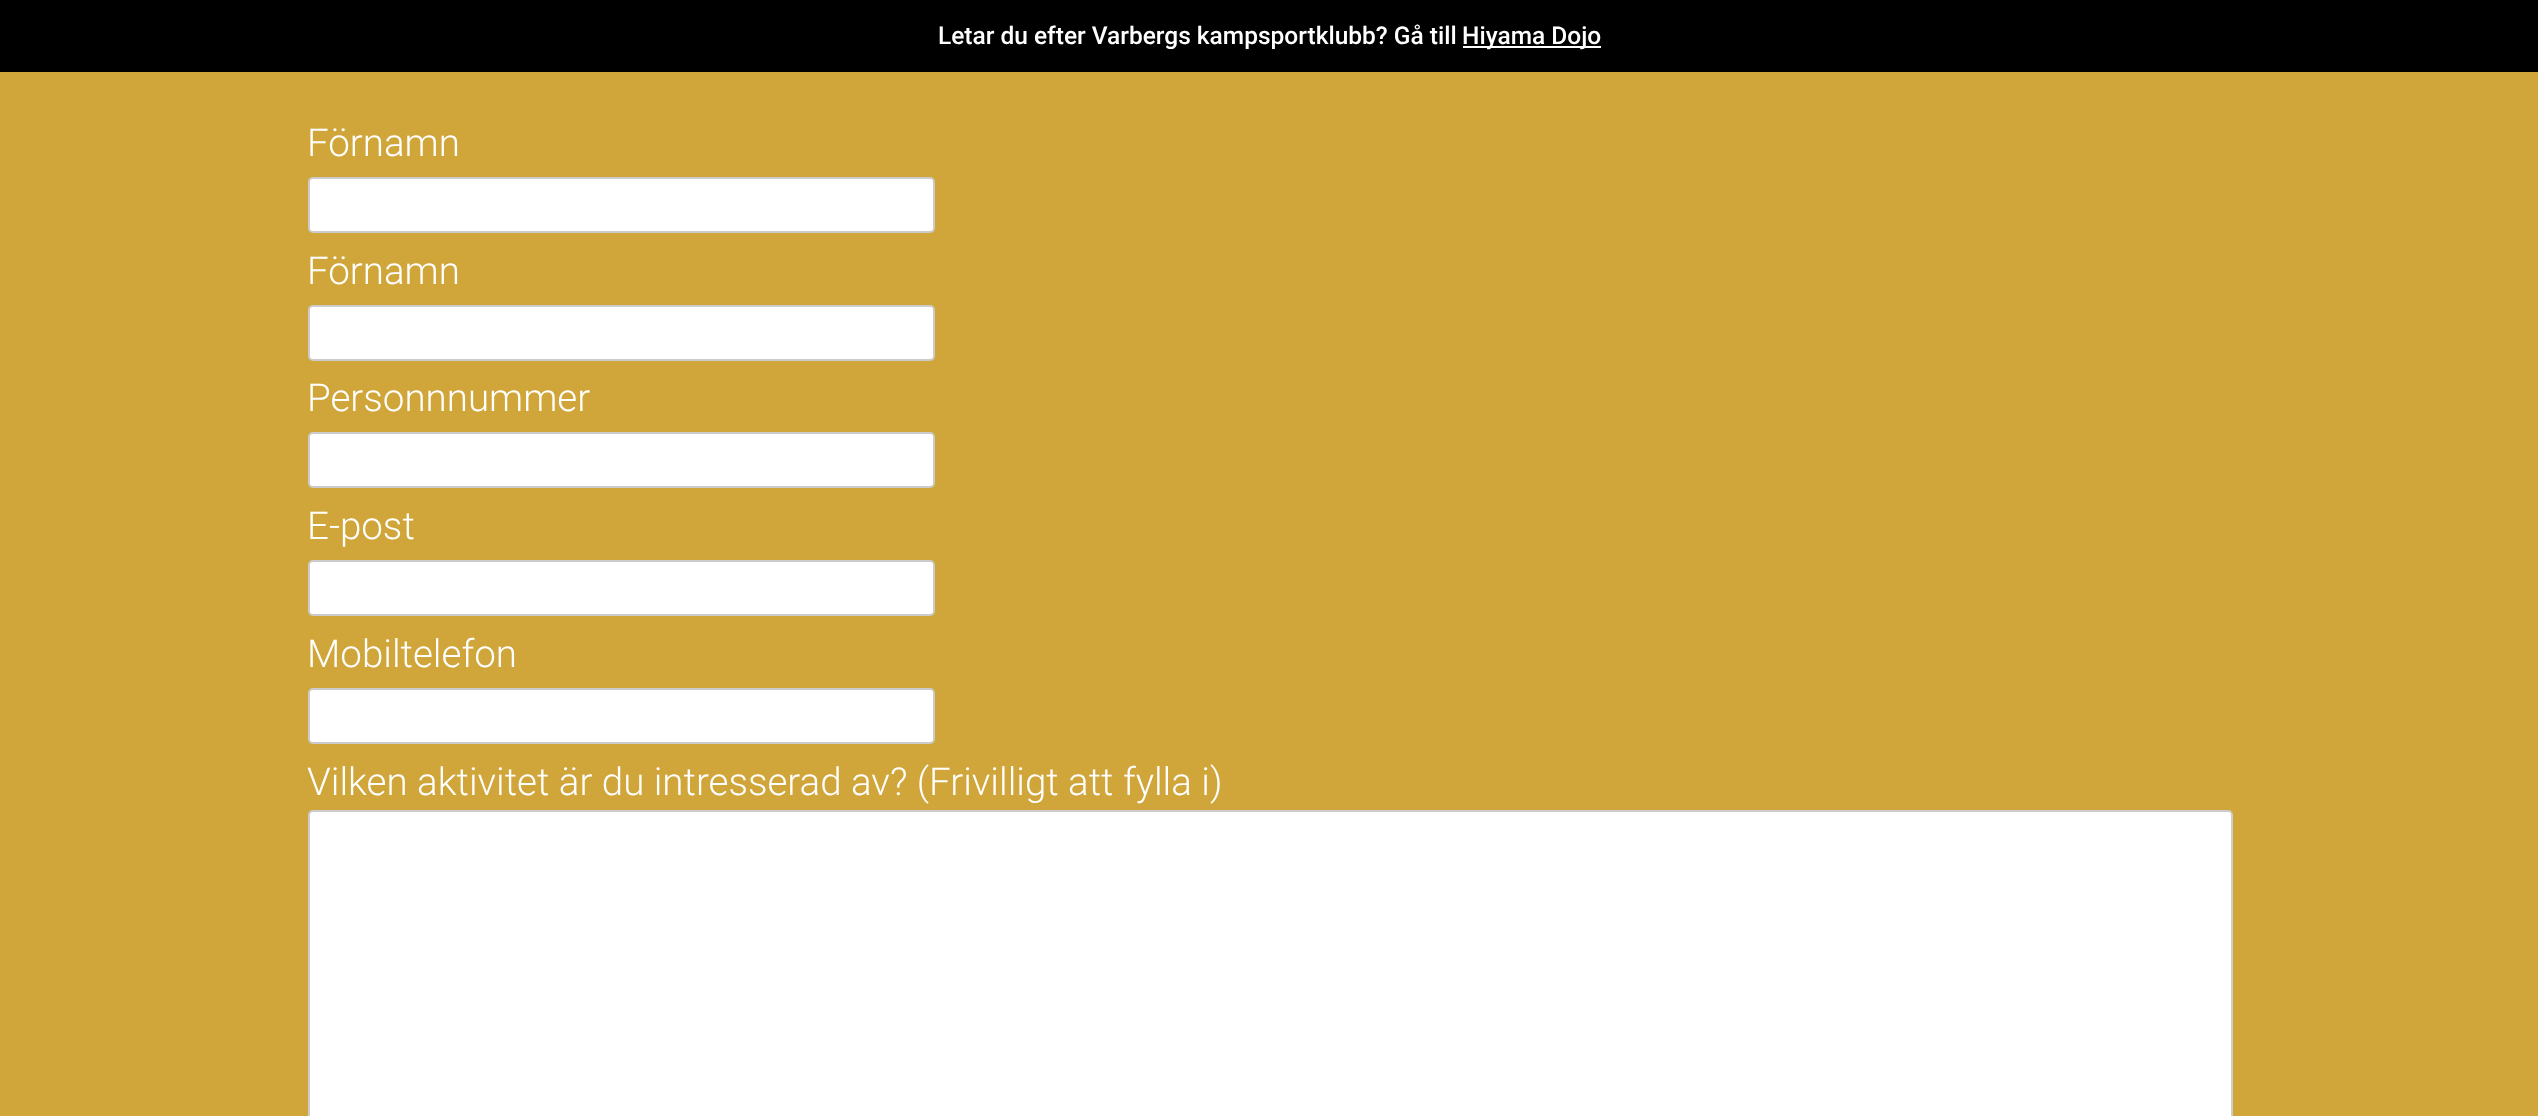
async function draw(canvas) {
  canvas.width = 2538
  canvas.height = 1116
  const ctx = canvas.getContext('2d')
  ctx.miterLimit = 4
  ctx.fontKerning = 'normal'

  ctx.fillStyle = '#d0a63b'
  ctx.fillRect(0, 0, 2538, 1116)
  ctx.fillStyle = '#000'
  ctx.fillRect(0, 0, 2538, 72)
  ctx.font = '500 24.5px Roboto'
  ctx.fillStyle = '#fff'
  ctx.fillText('Letar du efter Varbergs kampsportklubb? Gå till', 938, 44)
  ctx.fillRect(1463, 46, 138, 2)
  ctx.fillText('Hiyama Dojo', 1462, 44)
  ctx.font = '300 38.5px Roboto'
  ctx.fillText('Förnamn', 307, 156)
  ctx.beginPath()
  ctx.roundRect(309, 178, 625, 54, 4)
  ctx.fill()
  ctx.strokeStyle = '#ccc'
  ctx.lineWidth = 2
  ctx.stroke()
  ctx.fillText('Förnamn', 307, 284)
  ctx.beginPath()
  ctx.roundRect(309, 306, 625, 54, 4)
  ctx.fill()
  ctx.stroke()
  ctx.fillText('Personnnummer', 307, 411)
  ctx.beginPath()
  ctx.roundRect(309, 433, 625, 54, 4)
  ctx.fill()
  ctx.stroke()
  ctx.fillText('E-post', 307, 539)
  ctx.beginPath()
  ctx.roundRect(309, 561, 625, 54, 4)
  ctx.fill()
  ctx.stroke()
  ctx.fillText('Mobiltelefon', 307, 667)
  ctx.beginPath()
  ctx.roundRect(309, 689, 625, 54, 4)
  ctx.fill()
  ctx.stroke()
  ctx.fillText('Vilken aktivitet är du intresserad av? (Frivilligt att fylla i)', 307, 795)
  ctx.beginPath()
  ctx.roundRect(309, 811, 1923, 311, 4)
  ctx.fill()
  ctx.stroke()
}

draw(document.querySelector('canvas'))
